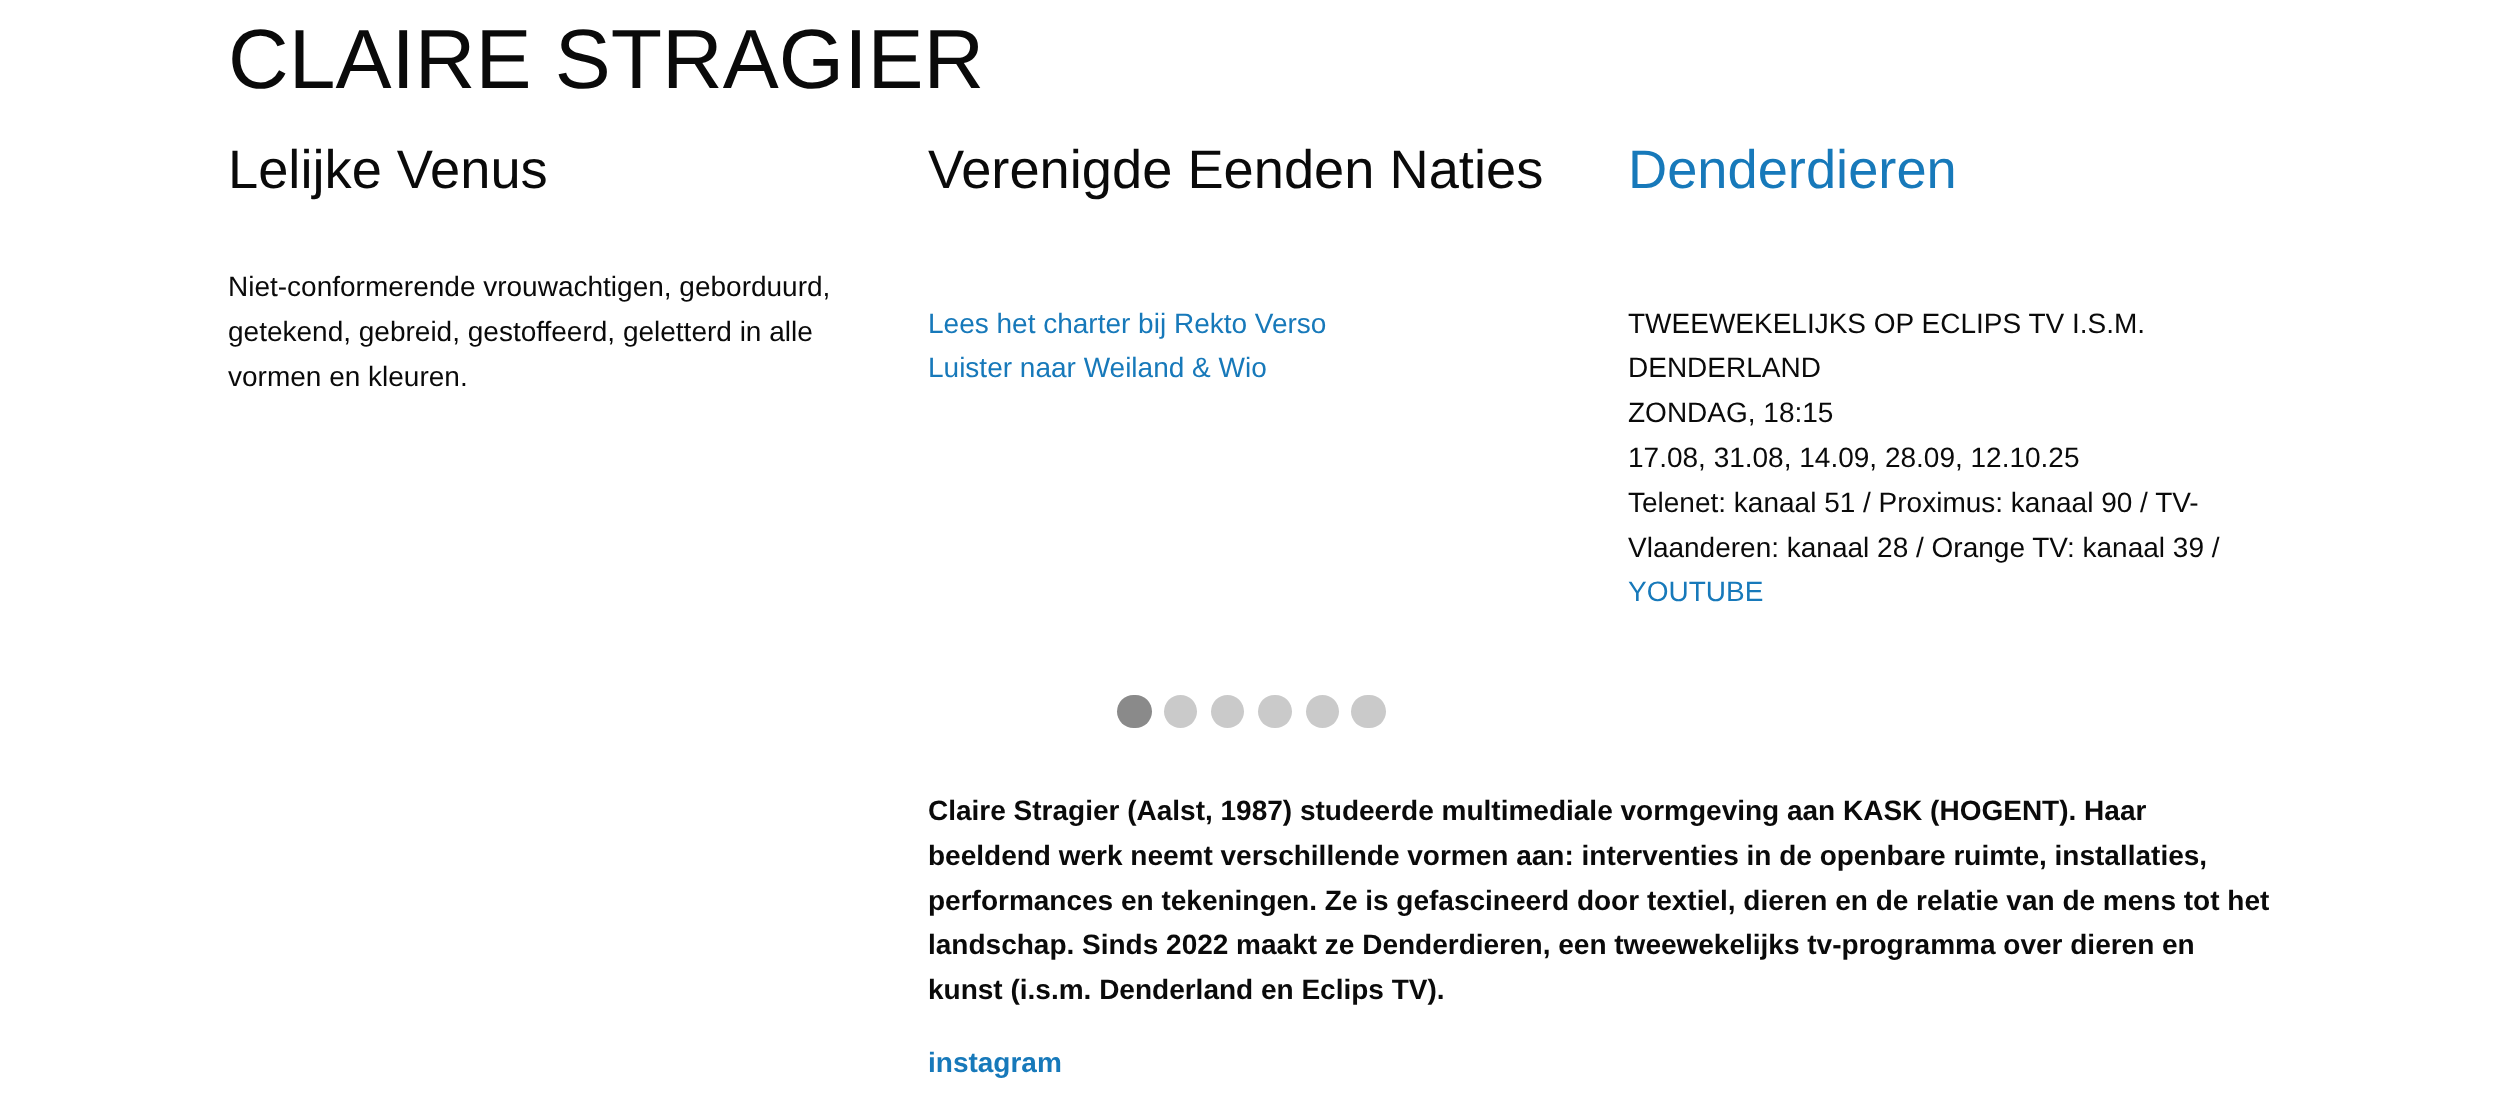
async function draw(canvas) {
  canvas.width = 2502
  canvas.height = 1098
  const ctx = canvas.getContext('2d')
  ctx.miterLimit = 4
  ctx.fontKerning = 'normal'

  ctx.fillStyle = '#fff'
  ctx.fillRect(0, 0, 2502, 1098)
  ctx.font = '84px Liberation Sans'
  ctx.fillStyle = '#0a0a0a'
  ctx.fillText('CLAIRE STRAGIER', 228, 88)
  ctx.font = '54.25px Liberation Sans'
  ctx.fillText('Lelijke Venus', 228, 188)
  ctx.font = '28px Liberation Sans'
  ctx.fillText('Niet-conformerende vrouwachtigen, geborduurd,', 228, 296)
  ctx.fillText('getekend, gebreid, gestoffeerd, geletterd in alle', 228, 341)
  ctx.fillText('vormen en kleuren.', 228, 386)
  ctx.font = '54.25px Liberation Sans'
  ctx.fillText('Verenigde Eenden Naties', 928, 188)
  ctx.font = '28px Liberation Sans'
  ctx.fillStyle = '#1779ba'
  ctx.fillText('Lees het charter bij Rekto Verso', 928, 333)
  ctx.fillText('Luister naar Weiland & Wio', 928, 377)
  ctx.font = '54.25px Liberation Sans'
  ctx.fillText('Denderdieren', 1628, 188)
  ctx.font = '28px Liberation Sans'
  ctx.fillStyle = '#0a0a0a'
  ctx.fillText('TWEEWEKELIJKS OP ECLIPS TV I.S.M.', 1628, 333)
  ctx.fillText('DENDERLAND', 1628, 377)
  ctx.fillText('ZONDAG, 18:15', 1628, 422)
  ctx.fillText('17.08, 31.08, 14.09, 28.09, 12.10.25', 1628, 467)
  ctx.fillText('Telenet: kanaal 51 / Proximus: kanaal 90 / TV-', 1628, 512)
  ctx.fillText('Vlaanderen: kanaal 28 / Orange TV: kanaal 39 /', 1628, 557)
  ctx.fillStyle = '#1779ba'
  ctx.fillText('YOUTUBE', 1628, 601)
  ctx.fillStyle = '#8a8a8a'
  ctx.beginPath()
  ctx.roundRect(1117, 695, 35, 33, 16.5)
  ctx.fill()
  ctx.fillStyle = '#cacaca'
  ctx.beginPath()
  ctx.arc(1180.5, 711.5, 16.5, 0, 2 * Math.PI)
  ctx.fill()
  ctx.beginPath()
  ctx.arc(1227.5, 711.5, 16.5, 0, 2 * Math.PI)
  ctx.fill()
  ctx.beginPath()
  ctx.roundRect(1258, 695, 34, 33, 16.5)
  ctx.fill()
  ctx.beginPath()
  ctx.arc(1322.5, 711.5, 16.5, 0, 2 * Math.PI)
  ctx.fill()
  ctx.beginPath()
  ctx.roundRect(1351, 695, 35, 33, 16.5)
  ctx.fill()
  ctx.font = 'bold 28px Liberation Sans'
  ctx.fillStyle = '#0a0a0a'
  ctx.fillText('Claire Stragier (Aalst, 1987) studeerde multimediale vormgeving aan KASK (HOGENT). Haar', 928, 820)
  ctx.fillText('beeldend werk neemt verschillende vormen aan: interventies in de openbare ruimte, installaties,', 928, 865)
  ctx.fillText('performances en tekeningen. Ze is gefascineerd door textiel, dieren en de relatie van de mens tot het', 928, 910)
  ctx.fillText('landschap. Sinds 2022 maakt ze Denderdieren, een tweewekelijks tv-programma over dieren en', 928, 954)
  ctx.fillText('kunst (i.s.m. Denderland en Eclips TV).', 928, 999)
  ctx.fillStyle = '#1779ba'
  ctx.fillText('instagram', 928, 1072)
}

draw(document.querySelector('canvas'))
